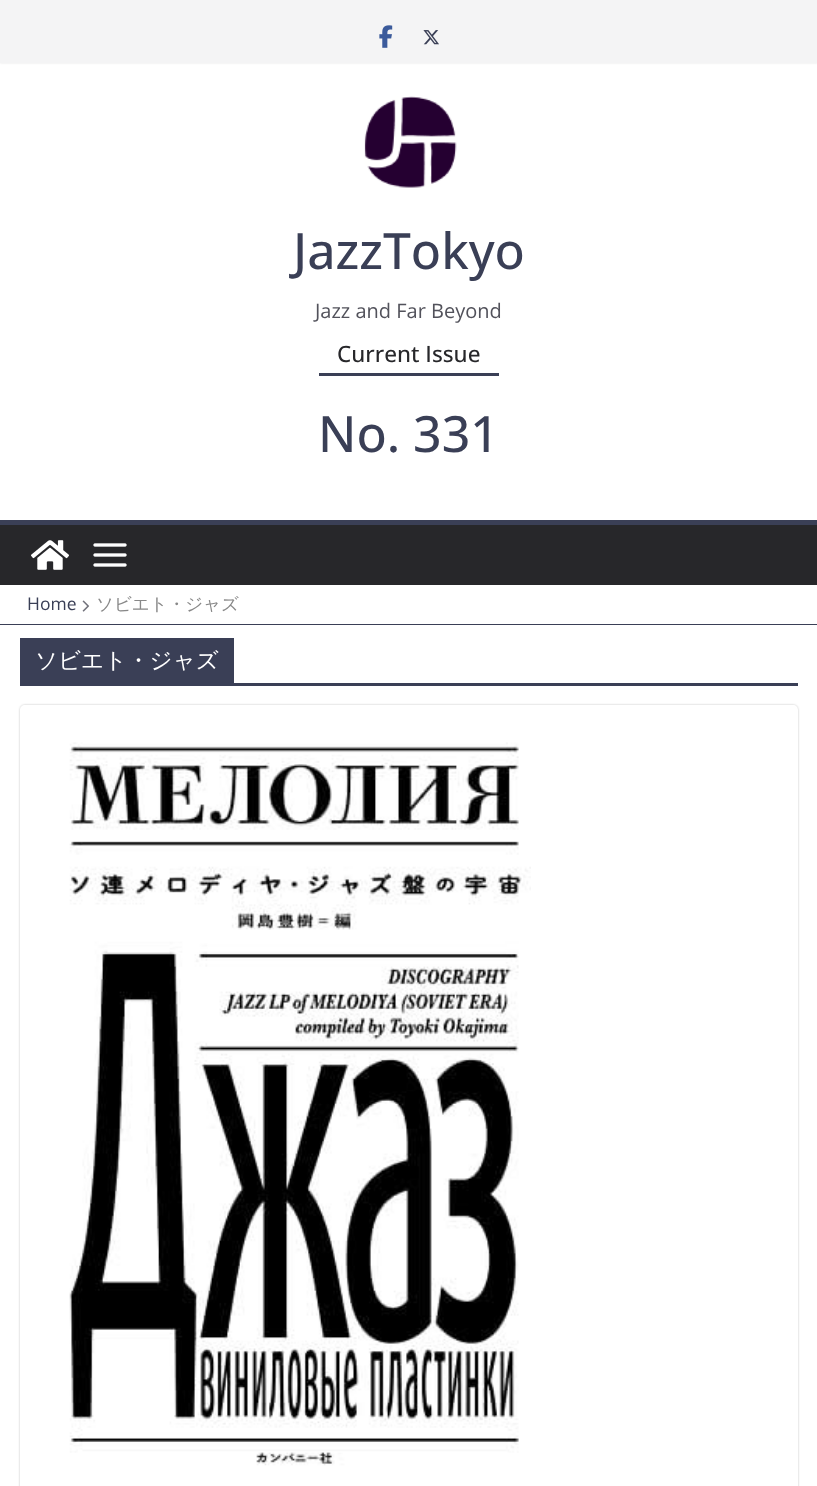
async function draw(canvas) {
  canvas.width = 817
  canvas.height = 1486
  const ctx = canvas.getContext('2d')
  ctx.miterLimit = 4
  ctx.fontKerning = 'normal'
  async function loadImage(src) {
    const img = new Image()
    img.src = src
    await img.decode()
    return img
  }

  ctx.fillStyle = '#fff'
  ctx.fillRect(0, 0, 817, 1486)
  ctx.fillStyle = '#0000001a'
  ctx.filter = 'blur(1px)'
  ctx.beginPath()
  ctx.rect(0, 0, 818, 63)
  ctx.fill()
  ctx.filter = 'none'
  ctx.fillStyle = '#f4f4f5'
  ctx.fillRect(0, 0, 817, 63)
  ctx.drawImage(await loadImage('image0.png'), 379, 25, 14, 23)
  ctx.drawImage(await loadImage('image1.png'), 423, 30, 16, 15)
  ctx.drawImage(await loadImage('image2.png'), 364, 96, 93, 92)
  ctx.font = '500 50px Open Sans'
  ctx.fillStyle = '#3a3f56'
  ctx.fillText('JazzTokyo', 293, 269)
  ctx.font = '20px Open Sans'
  ctx.fillStyle = '#52525b'
  ctx.fillText('Jazz and Far Beyond', 315, 318)
  ctx.fillStyle = '#3a3f56'
  ctx.fillRect(319, 373, 180, 3)
  ctx.font = '500 22.5px Open Sans'
  ctx.fillStyle = '#27272a'
  ctx.fillText('Current Issue', 337, 362)
  ctx.font = '500 50px Open Sans'
  ctx.fillStyle = '#3a3f56'
  ctx.fillText('No. 331', 318, 452)
  ctx.fillStyle = '#27272a'
  ctx.fillRect(0, 525, 817, 60)
  ctx.fillStyle = '#3a3f56'
  ctx.fillRect(0, 520, 817, 5)
  ctx.drawImage(await loadImage('image3.png'), 31, 540, 38, 30)
  ctx.drawImage(await loadImage('image4.png'), 93, 543, 34, 24)
  ctx.fillRect(0, 624, 817, 1)
  ctx.font = '17.5px Open Sans'
  ctx.fillText('Home', 27, 610)
  ctx.drawImage(await loadImage('image5.png'), 82, 600, 8, 12)
  ctx.font = '500 17.5px WenQuanYi Zen Hei'
  ctx.fillStyle = '#888'
  ctx.fillText('ソビエト・ジャズ', 96, 610)
  ctx.fillStyle = '#3a3f56'
  ctx.fillRect(20, 683, 778, 3)
  ctx.fillRect(20, 638, 214, 45)
  ctx.font = '500 22.5px WenQuanYi Zen Hei'
  ctx.fillStyle = '#fff'
  ctx.fillText('ソビエト・ジャズ', 35, 668)
  ctx.save()
  ctx.beginPath()
  ctx.moveTo(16, 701)
  ctx.lineTo(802, 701)
  ctx.lineTo(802, 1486)
  ctx.lineTo(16, 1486)
  ctx.closePath()
  ctx.moveTo(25, 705)
  ctx.lineTo(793, 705)
  ctx.bezierCurveTo(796, 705, 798, 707, 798, 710)
  ctx.lineTo(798, 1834)
  ctx.bezierCurveTo(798, 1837, 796, 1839, 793, 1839)
  ctx.lineTo(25, 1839)
  ctx.bezierCurveTo(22, 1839, 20, 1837, 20, 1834)
  ctx.lineTo(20, 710)
  ctx.bezierCurveTo(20, 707, 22, 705, 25, 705)
  ctx.closePath()
  ctx.clip('evenodd')
  ctx.fillStyle = '#0000003d'
  ctx.filter = 'blur(1px)'
  ctx.beginPath()
  ctx.roundRect(20, 705, 778, 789, 5)
  ctx.fill()
  ctx.filter = 'none'
  ctx.restore()
  ctx.drawImage(await loadImage('image6.png'), 69, 742, 462, 724)
}

draw(document.querySelector('canvas'))
